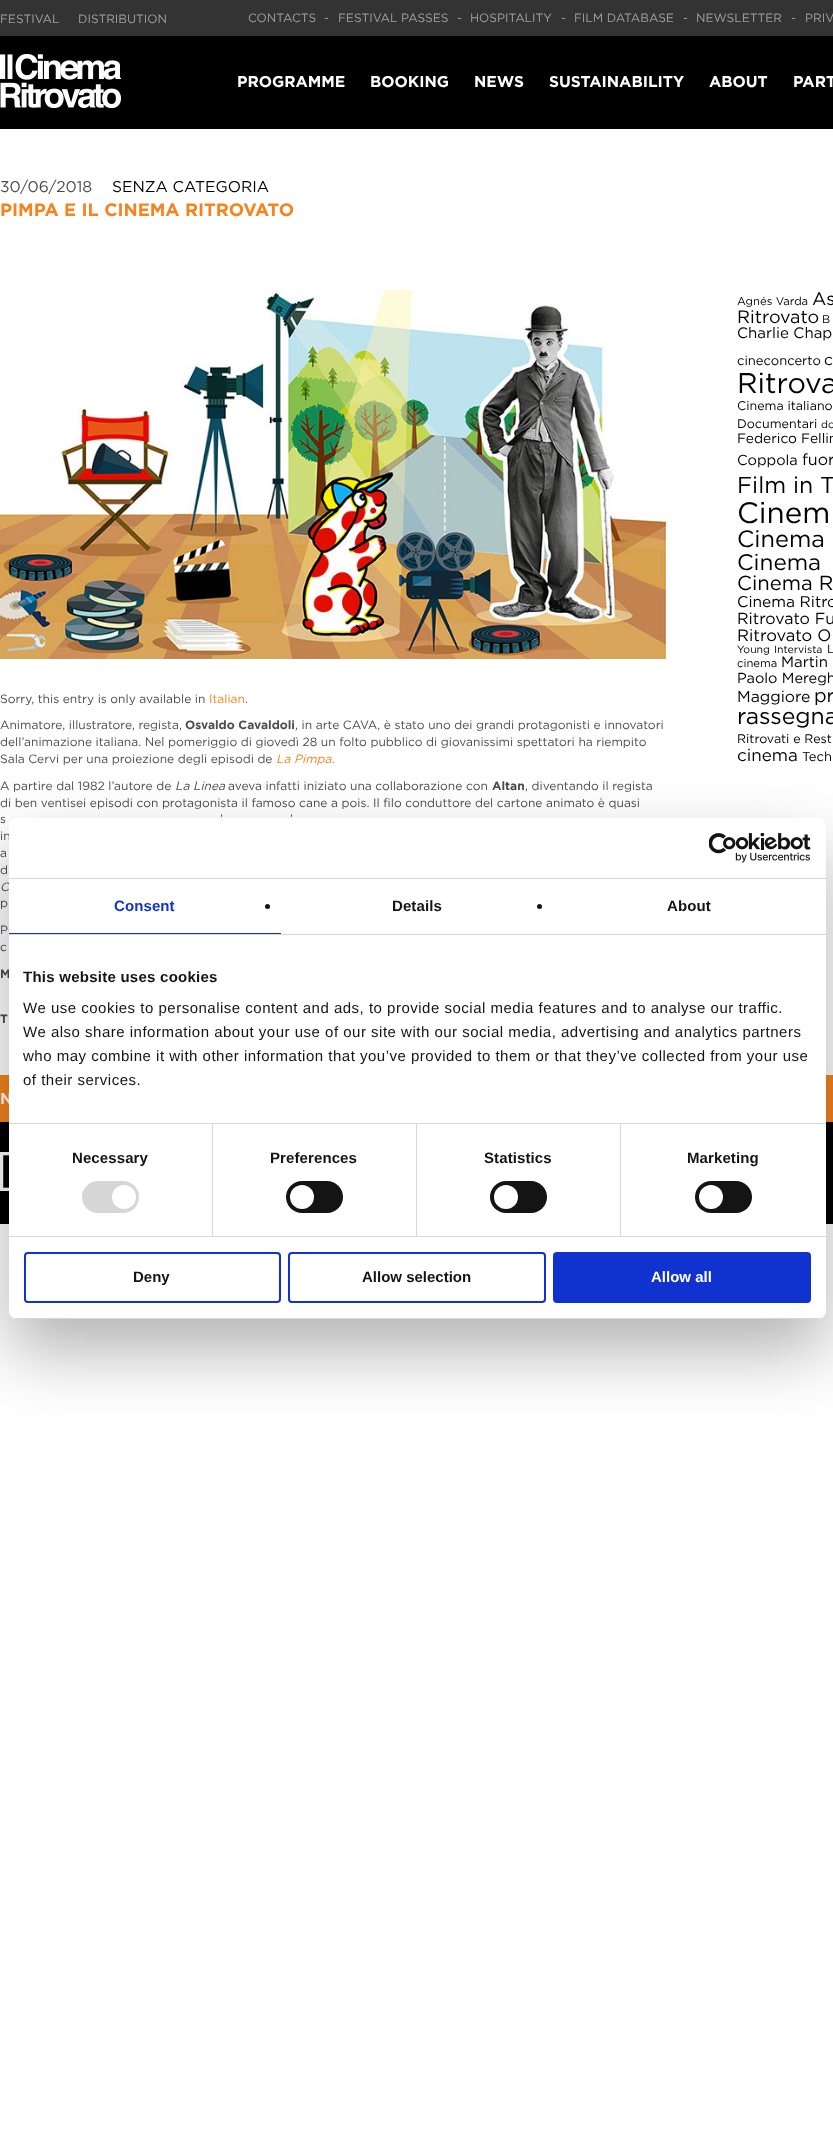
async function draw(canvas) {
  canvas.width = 833
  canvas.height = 2136
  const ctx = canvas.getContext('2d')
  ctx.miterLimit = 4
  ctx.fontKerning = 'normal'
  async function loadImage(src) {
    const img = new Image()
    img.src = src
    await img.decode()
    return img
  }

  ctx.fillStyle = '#fff'
  ctx.fillRect(0, 0, 833, 2136)
  ctx.fillStyle = '#333'
  ctx.fillRect(0, 0, 833, 36)
  ctx.font = '12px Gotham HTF'
  ctx.fillStyle = '#a0a0a0'
  ctx.fillText('FESTIVAL', 0, 23)
  ctx.fillText('DISTRIBUTION', 78, 23)
  ctx.fillText('CONTACTS', 248, 22)
  ctx.fillText('-', 324, 22)
  ctx.fillText('FESTIVAL PASSES', 338, 22)
  ctx.fillText('-', 457, 22)
  ctx.fillText('HOSPITALITY', 470, 22)
  ctx.fillText('-', 561, 22)
  ctx.fillText('FILM DATABASE', 574, 22)
  ctx.fillText('-', 683, 22)
  ctx.fillText('NEWSLETTER', 696, 22)
  ctx.fillText('-', 791, 22)
  ctx.fillText('PRIV', 805, 22)
  ctx.fillStyle = '#000'
  ctx.fillRect(0, 36, 833, 93)
  ctx.drawImage(await loadImage('image0.png'), 0, 54, 121, 54)
  ctx.font = 'bold 15.6px Gotham'
  ctx.fillStyle = '#fff'
  ctx.fillText('PROGRAMME', 237, 87)
  ctx.fillText('BOOKING', 370, 87)
  ctx.fillText('NEWS', 474, 87)
  ctx.fillText('SUSTAINABILITY', 549, 87)
  ctx.fillText('ABOUT', 709, 87)
  ctx.fillText('PART', 793, 87)
  ctx.font = '15.6px Gotham HTF'
  ctx.fillStyle = '#4d4d4d'
  ctx.fillText('30/06/2018', 0, 192)
  ctx.fillStyle = '#000'
  ctx.fillText('SENZA CATEGORIA', 112, 192)
  ctx.font = 'bold 18px Gotham'
  ctx.fillStyle = '#f6841e'
  ctx.fillText('PIMPA E IL CINEMA RITROVATO', 0, 216)
  ctx.font = '11.25px Gotham HTF'
  ctx.fillStyle = '#000'
  ctx.fillText('Agnés Varda', 737, 305)
  ctx.font = '18px Gotham HTF'
  ctx.fillText('As', 812, 305)
  ctx.fillText('Ritrovato', 737, 323)
  ctx.font = '11.25px Gotham HTF'
  ctx.fillText('B', 822, 323)
  ctx.font = '15px Gotham HTF'
  ctx.fillText('Charlie Chap', 737, 338)
  ctx.font = '13px Gotham HTF'
  ctx.fillText('cineconcerto', 737, 365)
  ctx.font = '15.5px Gotham HTF'
  ctx.fillText('c', 824, 365)
  ctx.font = '28.5px Gotham HTF'
  ctx.fillText('Ritrova', 737, 393)
  ctx.font = '12.5px Gotham HTF'
  ctx.fillText('Cinema italiano', 737, 410)
  ctx.fillText('Documentari', 737, 428)
  ctx.font = '10.5px Gotham HTF'
  ctx.fillText('do', 821, 428)
  ctx.font = '13.75px Gotham HTF'
  ctx.fillText('Federico Fellin', 737, 443)
  ctx.font = '14.5px Gotham HTF'
  ctx.fillText('Coppola', 737, 465)
  ctx.font = '16px Gotham HTF'
  ctx.fillText('fuor', 802, 465)
  ctx.font = '23px Gotham HTF'
  ctx.fillText('Film in T', 737, 493)
  ctx.font = '29.5px Gotham HTF'
  ctx.fillText('Cinem', 737, 523)
  ctx.font = '23.5px Gotham HTF'
  ctx.fillText('Cinema', 737, 547)
  ctx.font = '22.5px Gotham HTF'
  ctx.fillText('Cinema', 737, 570)
  ctx.font = '20.25px Gotham HTF'
  ctx.fillText('Cinema R', 737, 590)
  ctx.font = '15.5px Gotham HTF'
  ctx.fillText('Cinema Ritro', 737, 607)
  ctx.font = '16px Gotham HTF'
  ctx.fillText('Ritrovato Fu', 737, 624)
  ctx.font = '16.5px Gotham HTF'
  ctx.fillText('Ritrovato O', 737, 641)
  ctx.font = '10.5px Gotham HTF'
  ctx.fillText('Young', 737, 653)
  ctx.fillText('Intervista', 774, 653)
  ctx.font = '12px Gotham HTF'
  ctx.fillText('L', 827, 653)
  ctx.font = '11.25px Gotham HTF'
  ctx.fillText('cinema', 737, 667)
  ctx.font = '15px Gotham HTF'
  ctx.fillText('Martin', 781, 667)
  ctx.font = '14.5px Gotham HTF'
  ctx.fillText('Paolo Meregh', 737, 683)
  ctx.font = '15.75px Gotham HTF'
  ctx.fillText('Maggiore', 737, 702)
  ctx.font = '19px Gotham HTF'
  ctx.fillText('pr', 814, 702)
  ctx.font = '23px Gotham HTF'
  ctx.fillText('rassegna', 737, 724)
  ctx.font = '12.5px Gotham HTF'
  ctx.fillText('Ritrovati e Rest', 737, 743)
  ctx.font = '17px Gotham HTF'
  ctx.fillText('cinema', 737, 761)
  ctx.font = '13px Gotham HTF'
  ctx.fillText('Tech', 802, 761)
  ctx.drawImage(await loadImage('image1.png'), 0, 290, 666, 369)
  ctx.font = '12px Gotham HTF'
  ctx.fillStyle = '#4d4d4d'
  ctx.fillText('Sorry, this entry is only available in', 0, 703)
  ctx.fillStyle = '#f6841e'
  ctx.fillText('Italian', 209, 703)
  ctx.fillStyle = '#4d4d4d'
  ctx.fillText('.', 245, 703)
  ctx.fillText('Animatore, illustratore, regista,', 0, 729)
  ctx.font = 'bold 12px Gotham'
  ctx.fillText('Osvaldo Cavaldoli', 185, 729)
  ctx.font = '12px Gotham HTF'
  ctx.fillText(', in arte CAVA, è stato uno dei grandi protagonisti e innovatori', 295, 729)
  ctx.fillText('dell’animazione italiana. Nel pomeriggio di giovedì 28 un folto pubblico di giovanissimi spettatori ha riempito', 0, 746)
  ctx.fillText('Sala Cervi per una proiezione degli episodi de', 0, 763)
  ctx.font = 'italic 12px Gotham HTF'
  ctx.fillStyle = '#f6841e'
  ctx.fillText('La Pimpa.', 276, 763)
  ctx.font = '12px Gotham HTF'
  ctx.fillStyle = '#4d4d4d'
  ctx.fillText('A partire dal 1982 l’autore de', 0, 790)
  ctx.font = 'italic 12px Gotham HTF'
  ctx.fillText('La Linea', 175, 790)
  ctx.font = '12px Gotham HTF'
  ctx.fillText('aveva infatti iniziato una collaborazione con', 228, 790)
  ctx.font = 'bold 12px Gotham'
  ctx.fillText('Altan', 492, 790)
  ctx.font = '12px Gotham HTF'
  ctx.fillText(', diventando il regista', 525, 790)
  ctx.fillText('di ben ventisei episodi con protagonista il famoso cane a pois. Il filo conduttore del cartone animato è quasi', 0, 807)
  ctx.fillText('s', 0, 823)
  ctx.fillText('’', 220, 823)
  ctx.fillText('’', 290, 823)
  ctx.fillText('in', 0, 840)
  ctx.fillText('a', 0, 857)
  ctx.fillText('d', 0, 874)
  ctx.font = 'italic 12px Gotham HTF'
  ctx.fillText('C', 0, 891)
  ctx.font = '12px Gotham HTF'
  ctx.fillText('p', 0, 907)
  ctx.fillText('P', 0, 934)
  ctx.fillText('c', 0, 951)
  ctx.font = 'bold 12px Gotham'
  ctx.fillText('M', 0, 978)
  ctx.fillText('T', 0, 1023)
  ctx.fillStyle = '#f6841e'
  ctx.fillRect(0, 1075, 833, 47)
  ctx.font = 'bold 15.6px Gotham'
  ctx.fillStyle = '#fff'
  ctx.fillText('N', 0, 1104)
  ctx.fillStyle = '#000'
  ctx.fillRect(0, 1122, 833, 102)
  ctx.drawImage(await loadImage('image2.png'), 0, 1152, 9, 39)
  ctx.fillStyle = '#0000004d'
  ctx.filter = 'blur(34px)'
  ctx.beginPath()
  ctx.roundRect(9, 850, 817, 501, 8)
  ctx.fill()
  ctx.filter = 'none'
  ctx.fillStyle = '#fff'
  ctx.beginPath()
  ctx.roundRect(9, 818, 817, 501, 8)
  ctx.fill()
  ctx.fillStyle = '#d6d6d6'
  ctx.fillRect(9, 878, 817, 1)
  ctx.drawImage(await loadImage('image3.png'), 709, 833, 102, 30)
  ctx.fillRect(9, 934, 817, 1)
  ctx.fillStyle = '#1032cf'
  ctx.fillRect(9, 933, 272, 1)
  ctx.letterSpacing = '0.1px'
  ctx.font = 'bold 15px Liberation Sans'
  ctx.fillText('Consent', 114, 911)
  ctx.fillStyle = '#141414'
  ctx.beginPath()
  ctx.arc(267.5, 906.5, 2.5, 0, 2 * Math.PI)
  ctx.fill()
  ctx.fillText('Details', 392, 911)
  ctx.beginPath()
  ctx.arc(539.5, 906.5, 2.5, 0, 2 * Math.PI)
  ctx.fill()
  ctx.fillText('About', 667, 911)
  ctx.fillStyle = '#d6d6d6'
  ctx.fillRect(9, 1123, 817, 1)
  ctx.letterSpacing = '0.25px'
  ctx.fillStyle = '#141414'
  ctx.fillText('This website uses cookies', 23, 982)
  ctx.letterSpacing = '0.5px'
  ctx.font = '15px Liberation Sans'
  ctx.fillText('We use cookies to personalise content and ads, to provide social media features and to analyse our traffic.', 23, 1013)
  ctx.fillText('We also share information about your use of our site with our social media, advertising and analytics partners', 23, 1037)
  ctx.fillText('who may combine it with other information that you’ve provided to them or that they’ve collected from your use', 23, 1061)
  ctx.fillText('of their services.', 23, 1085)
  ctx.fillStyle = '#d6d6d6'
  ctx.fillRect(9, 1236, 817, 1)
  ctx.fillRect(212, 1124, 1, 112)
  ctx.letterSpacing = '0.1px'
  ctx.font = 'bold 15px Liberation Sans'
  ctx.fillStyle = '#141414'
  ctx.fillText('Necessary', 72, 1163)
  ctx.fillStyle = '#d6d6d6'
  ctx.beginPath()
  ctx.roundRect(82, 1181, 57, 32, 16)
  ctx.fill()
  ctx.fillStyle = '#fff'
  ctx.beginPath()
  ctx.arc(124, 1197, 12, 0, 2 * Math.PI)
  ctx.fill()
  ctx.fillStyle = '#d6d6d6'
  ctx.fillRect(416, 1124, 1, 112)
  ctx.fillStyle = '#141414'
  ctx.fillText('Preferences', 270, 1163)
  ctx.beginPath()
  ctx.roundRect(286, 1181, 57, 32, 16)
  ctx.fill()
  ctx.fillStyle = '#fff'
  ctx.beginPath()
  ctx.arc(302, 1197, 12, 0, 2 * Math.PI)
  ctx.fill()
  ctx.fillStyle = '#d6d6d6'
  ctx.fillRect(620, 1124, 1, 112)
  ctx.fillStyle = '#141414'
  ctx.fillText('Statistics', 484, 1163)
  ctx.beginPath()
  ctx.roundRect(490, 1181, 57, 32, 16)
  ctx.fill()
  ctx.fillStyle = '#fff'
  ctx.beginPath()
  ctx.arc(506, 1197, 12, 0, 2 * Math.PI)
  ctx.fill()
  ctx.fillStyle = '#141414'
  ctx.fillText('Marketing', 687, 1163)
  ctx.beginPath()
  ctx.roundRect(695, 1181, 57, 32, 16)
  ctx.fill()
  ctx.fillStyle = '#fff'
  ctx.beginPath()
  ctx.arc(711, 1197, 12, 0, 2 * Math.PI)
  ctx.fill()
  ctx.save()
  ctx.beginPath()
  ctx.roundRect(9, 818, 817, 501, 8)
  ctx.clip()
  ctx.fillStyle = '#d6d6d6'
  ctx.fillRect(9, 1318, 817, 1)
  ctx.restore()
  ctx.beginPath()
  ctx.roundRect(25, 1253, 255, 49, 3)
  ctx.strokeStyle = '#1032cf'
  ctx.lineWidth = 2
  ctx.stroke()
  ctx.letterSpacing = '0px'
  ctx.fillStyle = '#141414'
  ctx.fillText('Deny', 133, 1282)
  ctx.beginPath()
  ctx.roundRect(289, 1253, 256, 49, 3)
  ctx.stroke()
  ctx.fillText('Allow selection', 362, 1282)
  ctx.fillStyle = '#1032cf'
  ctx.beginPath()
  ctx.roundRect(554, 1253, 256, 49, 3)
  ctx.fill()
  ctx.stroke()
  ctx.fillStyle = '#fff'
  ctx.fillText('Allow all', 651, 1282)
}

draw(document.querySelector('canvas'))
